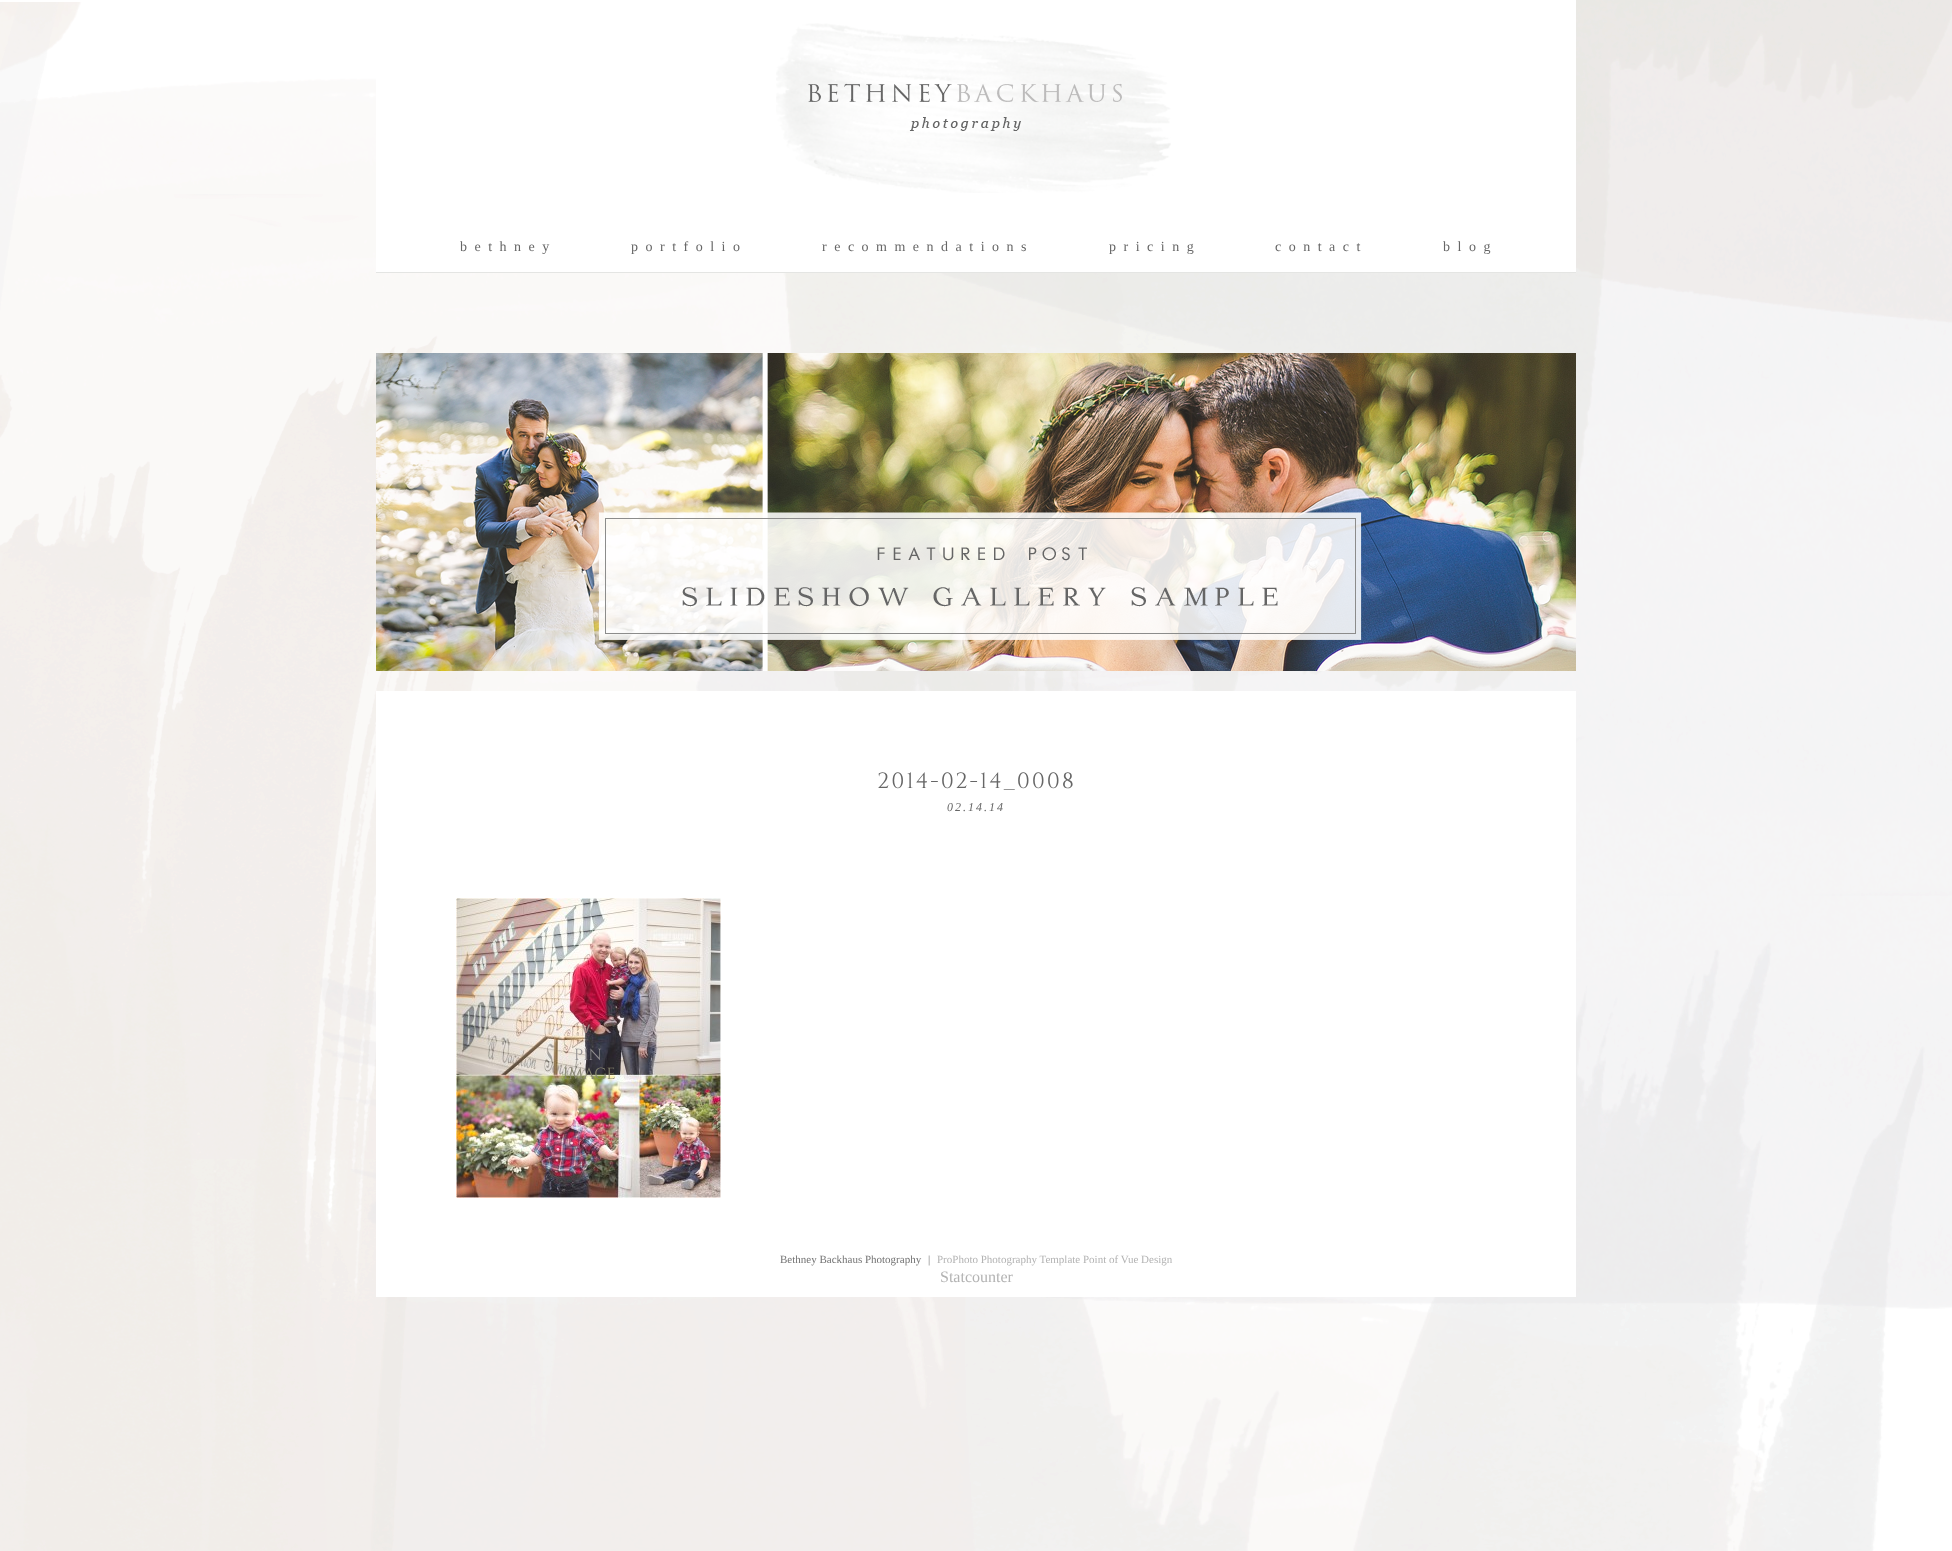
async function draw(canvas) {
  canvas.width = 1952
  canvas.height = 1551
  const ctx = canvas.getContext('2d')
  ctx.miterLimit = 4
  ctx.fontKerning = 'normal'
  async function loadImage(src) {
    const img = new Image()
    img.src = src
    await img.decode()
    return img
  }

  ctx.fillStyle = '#fff'
  ctx.fillRect(0, 0, 1952, 1551)
  ctx.drawImage(await loadImage('image0.png'), 0, 0, 1952, 1551)
  ctx.fillRect(376, 0, 1200, 272)
  ctx.drawImage(await loadImage('image1.png'), 776, 23, 395, 170)
  ctx.fillStyle = '#e4e5e3'
  ctx.fillRect(376, 272, 1200, 1)
  ctx.letterSpacing = '2px'
  ctx.font = '14px Liberation Serif'
  ctx.fillStyle = '#666'
  ctx.fillText('b e t h n e y', 460, 251)
  ctx.fillText('p o r t f o l i o', 631, 251)
  ctx.fillText('r e c o m m e n d a t i o n s', 822, 251)
  ctx.fillText('p r i c i n g', 1109, 251)
  ctx.fillText('c o n t a c t', 1275, 251)
  ctx.fillText('b l o g', 1443, 251)
  ctx.drawImage(await loadImage('image2.png'), 376, 353, 1200, 318)
  ctx.fillStyle = '#fff'
  ctx.fillRect(376, 691, 1200, 606)
  ctx.font = '22px Cinzel'
  ctx.fillStyle = '#666'
  ctx.fillText('2014-02-14_0008', 877, 788)
  ctx.font = 'italic 12px Liberation Serif'
  ctx.fillText('02.14.14', 947, 811)
  ctx.drawImage(await loadImage('image3.png'), 456, 898, 265, 300)
  ctx.letterSpacing = '0px'
  ctx.font = '16px Liberation Sans'
  ctx.fillStyle = '#9e7d7c'
  ctx.fillText('v', 582, 1033)
  ctx.font = '16px Cinzel'
  ctx.fillStyle = '#908d8f'
  ctx.fillText('PIN', 574, 1060)
  ctx.fillStyle = '#888871'
  ctx.fillText('IMAGE', 563, 1079)
  ctx.font = '11px Liberation Serif'
  ctx.fillStyle = '#737373'
  ctx.fillText('Bethney Backhaus Photography', 780, 1263)
  ctx.fillText('|', 928, 1263)
  ctx.fillStyle = '#b3b3b3'
  ctx.fillText('ProPhoto Photography Template Point of Vue Design', 937, 1263)
  ctx.font = '16px Liberation Serif'
  ctx.fillText('Statcounter', 940, 1282)
}

draw(document.querySelector('canvas'))
